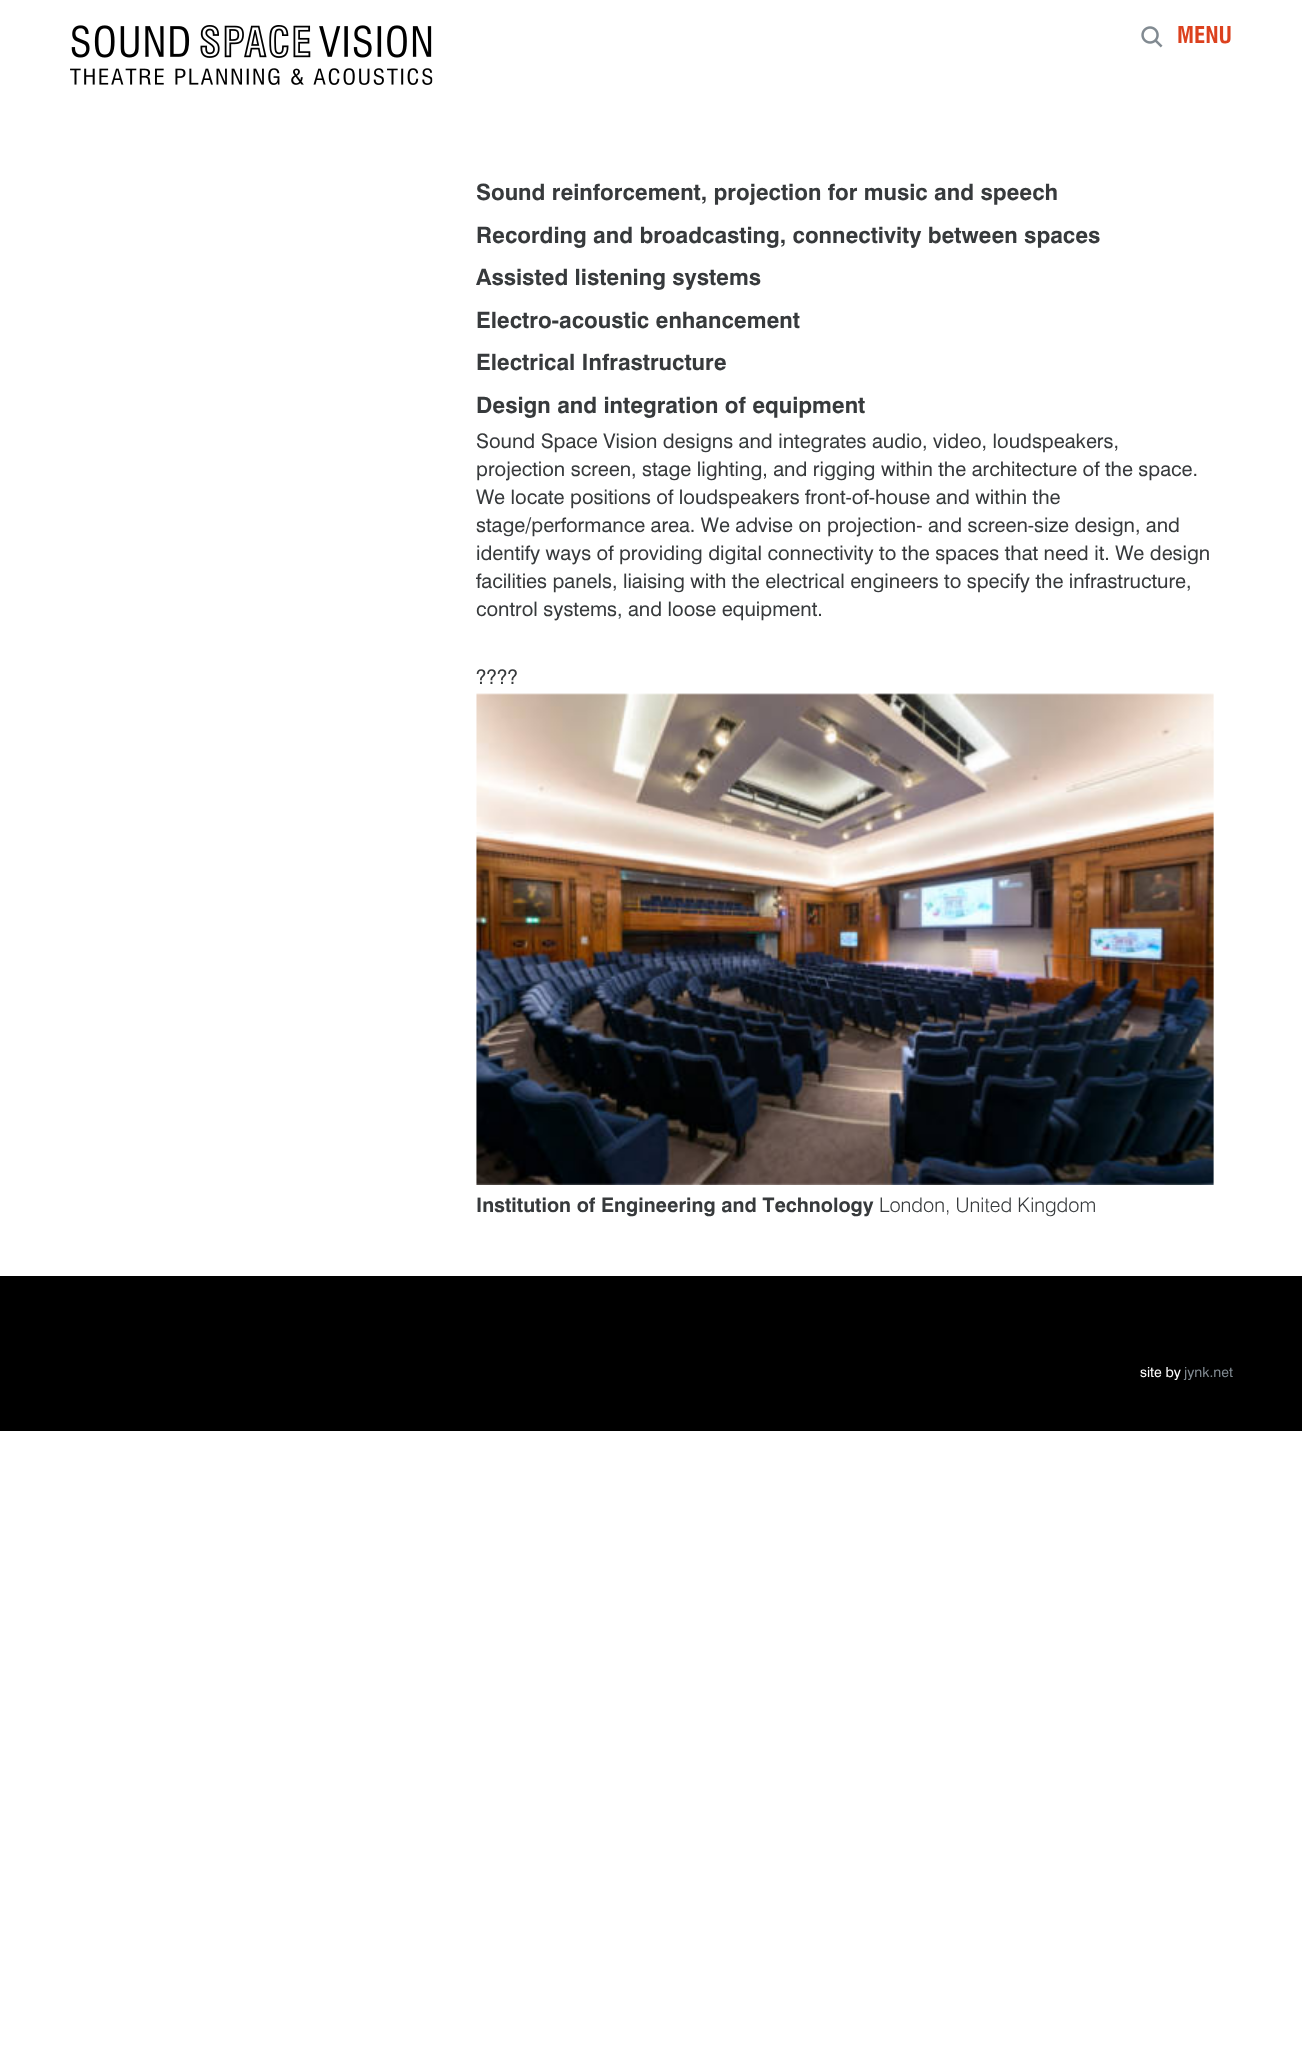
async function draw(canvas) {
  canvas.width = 1302
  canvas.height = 2055
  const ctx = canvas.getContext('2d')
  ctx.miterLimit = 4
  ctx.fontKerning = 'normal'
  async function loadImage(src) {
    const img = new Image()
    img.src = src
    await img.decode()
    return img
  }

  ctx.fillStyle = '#fff'
  ctx.fillRect(0, 0, 1302, 2055)
  ctx.drawImage(await loadImage('image0.png'), 70, 25, 363, 60)
  ctx.drawImage(await loadImage('image1.png'), 1141, 26, 22, 22)
  ctx.font = '22.5px "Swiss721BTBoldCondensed"'
  ctx.fillStyle = '#dc411e'
  ctx.fillText('MENU', 1177, 43)
  ctx.font = '22.5px "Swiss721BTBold"'
  ctx.fillStyle = '#373a3c'
  ctx.fillText('Sound reinforcement, projection for music and speech', 476, 200)
  ctx.fillText('Recording and broadcasting, connectivity between spaces', 476, 243)
  ctx.fillText('Assisted listening systems', 476, 285)
  ctx.fillText('Electro-acoustic enhancement', 476, 328)
  ctx.fillText('Electrical Infrastructure', 476, 370)
  ctx.fillText('Design and integration of equipment', 476, 413)
  ctx.font = '20px "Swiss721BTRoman"'
  ctx.fillText('Sound Space Vision designs and integrates audio, video, loudspeakers,', 476, 448)
  ctx.fillText('projection screen, stage lighting, and rigging within the architecture of the space.', 476, 476)
  ctx.fillText('We locate positions of loudspeakers front-of-house and within the', 476, 504)
  ctx.fillText('stage/performance area. We advise on projection- and screen-size design, and', 476, 532)
  ctx.fillText('identify ways of providing digital connectivity to the spaces that need it. We design', 476, 560)
  ctx.fillText('facilities panels, liaising with the electrical engineers to specify the infrastructure,', 476, 588)
  ctx.fillText('control systems, and loose equipment.', 476, 616)
  ctx.fillText('????', 476, 684)
  ctx.drawImage(await loadImage('image2.png'), 476, 693, 738, 492)
  ctx.font = '20px "Swiss721BTBold"'
  ctx.fillText('Institution of Engineering and Technology', 476, 1212)
  ctx.font = '20px "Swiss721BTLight"'
  ctx.fillText('London, United Kingdom', 879, 1212)
  ctx.fillStyle = '#000'
  ctx.fillRect(0, 1276, 1302, 155)
  ctx.font = '14px "Swiss721BTRoman"'
  ctx.fillStyle = '#fff'
  ctx.fillText('site by', 1140, 1377)
  ctx.fillStyle = '#818a91'
  ctx.fillText('jynk.net', 1184, 1377)
}

draw(document.querySelector('canvas'))
